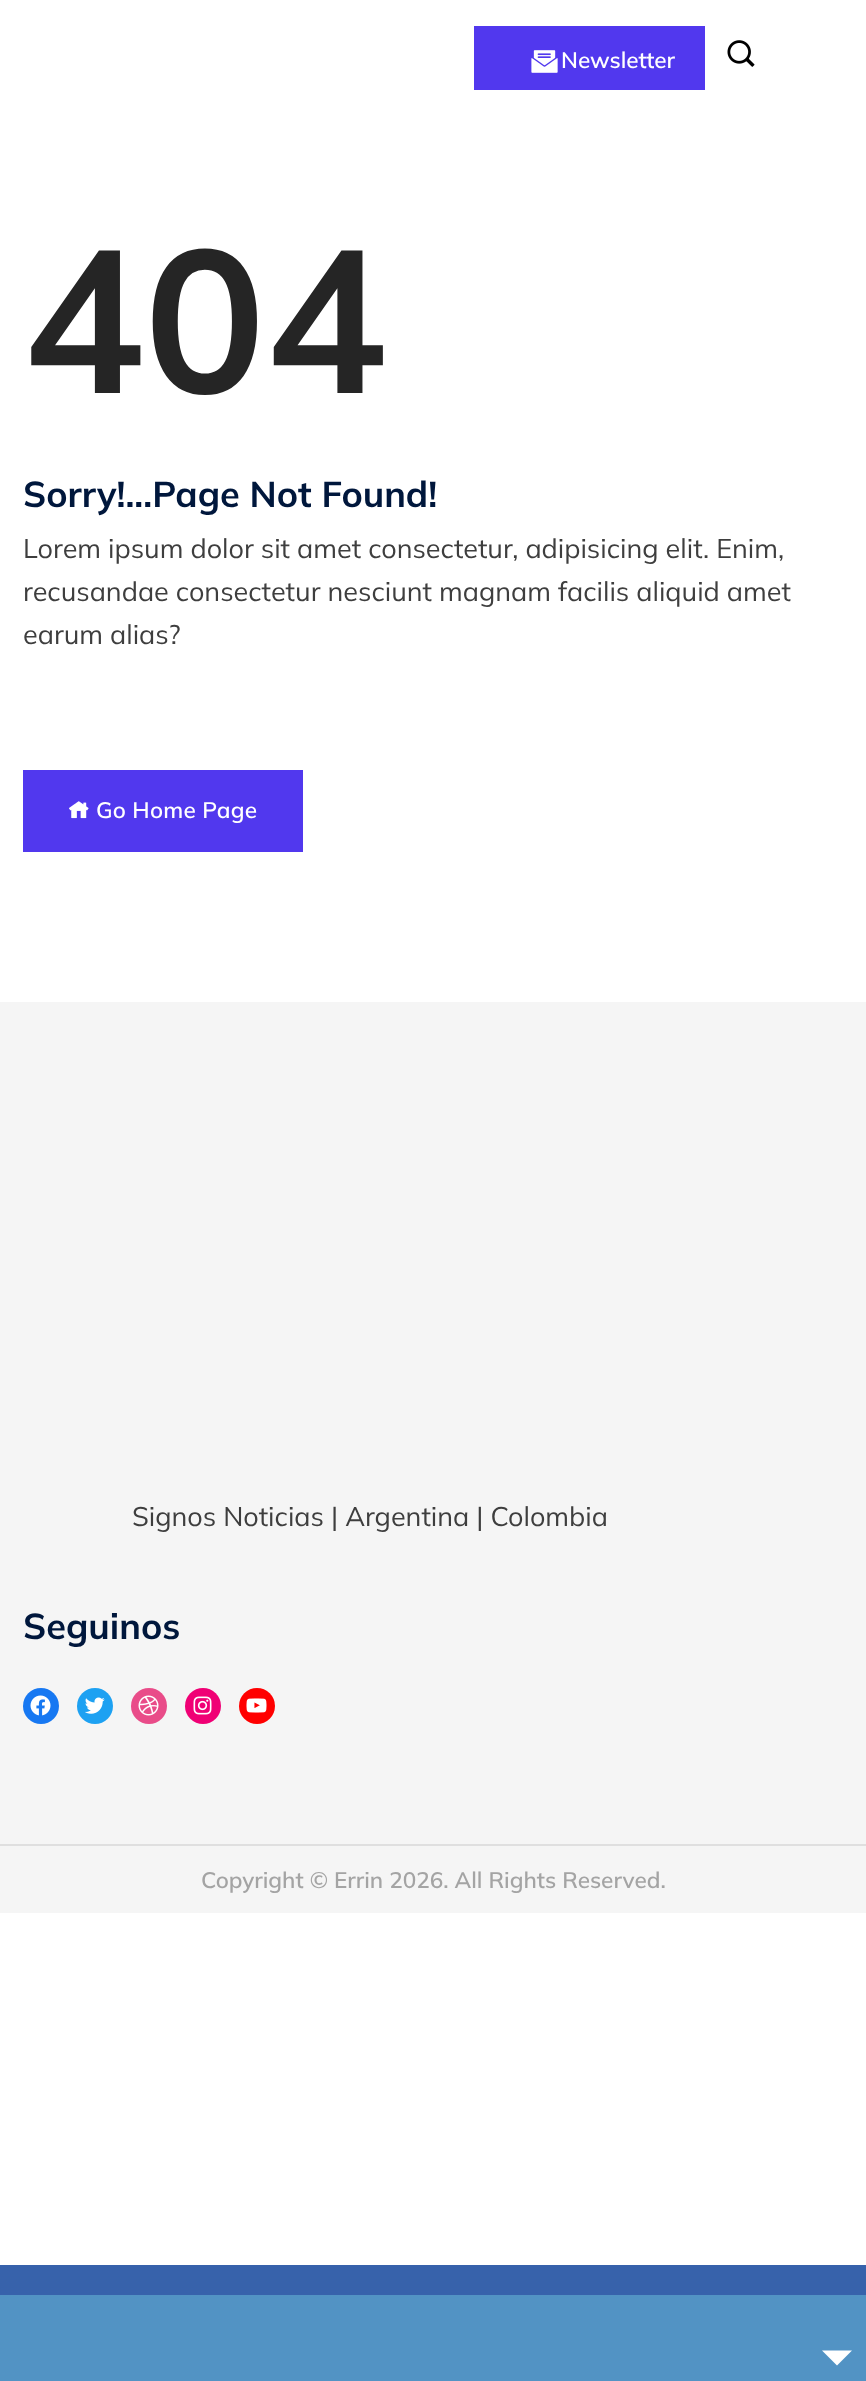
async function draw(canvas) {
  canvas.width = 866
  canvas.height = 2381
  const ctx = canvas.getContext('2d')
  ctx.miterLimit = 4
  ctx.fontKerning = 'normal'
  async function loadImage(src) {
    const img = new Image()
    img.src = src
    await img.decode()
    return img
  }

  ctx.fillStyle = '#fff'
  ctx.fillRect(0, 0, 866, 2381)
  ctx.fillStyle = '#5138ee'
  ctx.fillRect(474, 26, 231, 64)
  ctx.drawImage(await loadImage('image0.png'), 531, 50, 27, 23)
  ctx.font = '200 22.5px Mulish'
  ctx.fillStyle = '#fff'
  ctx.fillText('Newsletter', 561, 68)
  ctx.drawImage(await loadImage('image1.png'), 727, 40, 28, 27)
  ctx.font = '200 202px "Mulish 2"'
  ctx.fillStyle = '#252525'
  ctx.fillText('404', 23, 393)
  ctx.font = '200 36px "Mulish 2"'
  ctx.fillStyle = '#00173c'
  ctx.fillText('Sorry!...Page Not Found!', 23, 507)
  ctx.font = '200 27px "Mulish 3"'
  ctx.fillStyle = '#3e3e3e'
  ctx.fillText('Lorem ipsum dolor sit amet consectetur, adipisicing elit. Enim,', 23, 558)
  ctx.fillText('recusandae consectetur nesciunt magnam facilis aliquid amet', 23, 601)
  ctx.fillText('earum alias?', 23, 644)
  ctx.fillStyle = '#5138ee'
  ctx.fillRect(23, 770, 280, 82)
  ctx.drawImage(await loadImage('image2.png'), 69, 801, 20, 18)
  ctx.letterSpacing = '0.25px'
  ctx.font = '200 22.5px Mulish'
  ctx.fillStyle = '#fff'
  ctx.fillText('Go Home Page', 96, 818)
  ctx.fillStyle = '#f5f5f5'
  ctx.fillRect(0, 1002, 866, 911)
  ctx.letterSpacing = '0px'
  ctx.font = '200 27px "Mulish 3"'
  ctx.fillStyle = '#3e3e3e'
  ctx.fillText('Signos Noticias | Argentina | Colombia', 132, 1526)
  ctx.font = '200 36px "Mulish 2"'
  ctx.fillStyle = '#00173c'
  ctx.fillText('Seguinos', 23, 1639)
  ctx.fillStyle = '#1778f2'
  ctx.beginPath()
  ctx.arc(41, 1706, 18, 0, 2 * Math.PI)
  ctx.fill()
  ctx.drawImage(await loadImage('image3.png'), 30, 1695, 21, 21)
  ctx.fillStyle = '#1da1f2'
  ctx.beginPath()
  ctx.arc(95, 1706, 18, 0, 2 * Math.PI)
  ctx.fill()
  ctx.drawImage(await loadImage('image4.png'), 85, 1697, 20, 17)
  ctx.fillStyle = '#e94c89'
  ctx.beginPath()
  ctx.arc(149, 1706, 18, 0, 2 * Math.PI)
  ctx.fill()
  ctx.drawImage(await loadImage('image5.png'), 138, 1695, 21, 21)
  ctx.fillStyle = '#f00075'
  ctx.beginPath()
  ctx.arc(203, 1706, 18, 0, 2 * Math.PI)
  ctx.fill()
  ctx.drawImage(await loadImage('image6.png'), 193, 1696, 19, 19)
  ctx.fillStyle = '#f00'
  ctx.beginPath()
  ctx.arc(257, 1706, 18, 0, 2 * Math.PI)
  ctx.fill()
  ctx.drawImage(await loadImage('image7.png'), 246, 1698, 21, 15)
  ctx.fillStyle = '#dfdfdf'
  ctx.fillRect(0, 1844, 866, 2)
  ctx.font = '200 22.5px Mulish'
  ctx.fillStyle = '#a4a4a4'
  ctx.fillText('Copyright © Errin 2026. All Rights Reserved.', 201, 1888)
  ctx.fillStyle = '#3762ab'
  ctx.fillRect(0, 2265, 866, 30)
  ctx.fillStyle = '#5293c4'
  ctx.fillRect(0, 2295, 866, 86)
  ctx.fillStyle = '#fff'
  ctx.beginPath()
  ctx.moveTo(822, 2350.5)
  ctx.lineTo(852, 2350.5)
  ctx.lineTo(837, 2365.5)
  ctx.closePath()
  ctx.fill()
}

draw(document.querySelector('canvas'))
